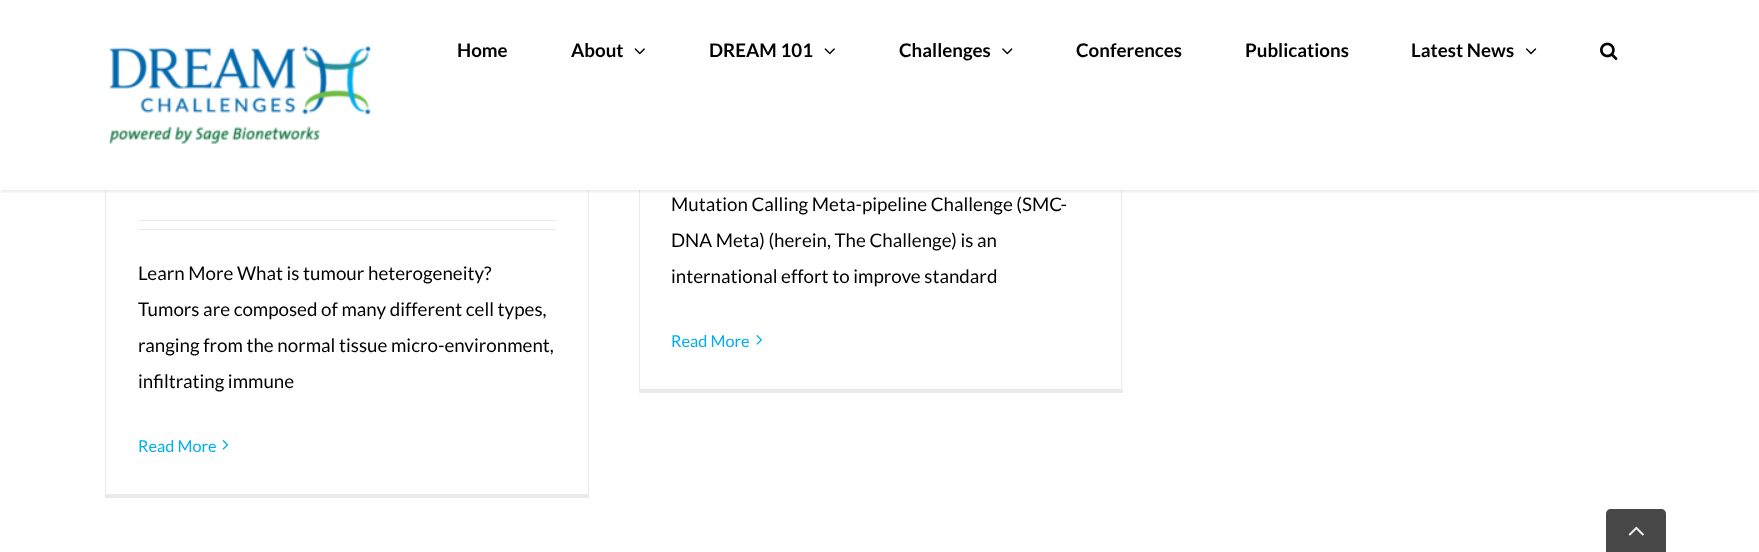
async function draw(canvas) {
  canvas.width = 1759
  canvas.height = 552
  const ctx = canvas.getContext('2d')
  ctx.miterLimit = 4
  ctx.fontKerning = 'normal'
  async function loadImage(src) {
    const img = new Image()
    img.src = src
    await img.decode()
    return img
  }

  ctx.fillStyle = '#fff'
  ctx.fillRect(0, 0, 1759, 552)
  ctx.fillStyle = '#eaeaea'
  ctx.fillRect(588, 0, 1, 498)
  ctx.fillRect(105, 494, 484, 4)
  ctx.fillRect(105, 0, 1, 498)
  ctx.fillRect(1121, 0, 1, 393)
  ctx.fillRect(639, 389, 484, 4)
  ctx.fillRect(639, 0, 1, 393)
  ctx.fillRect(671, 115, 419, 1)
  ctx.fillRect(671, 124, 419, 1)
  ctx.save()
  ctx.beginPath()
  ctx.rect(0, 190, 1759, 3)
  ctx.clip()
  ctx.fillStyle = '#0000001f'
  ctx.filter = 'blur(2px)'
  ctx.beginPath()
  ctx.rect(0, 1, 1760, 190)
  ctx.fill()
  ctx.filter = 'none'
  ctx.restore()
  ctx.fillStyle = '#fffffff7'
  ctx.fillRect(105, 0, 1017, 190)
  ctx.drawImage(await loadImage('image0.png'), 109, 46, 263, 98)
  ctx.font = 'bold 18.75px Lato'
  ctx.fillStyle = '#000'
  ctx.fillText('Home', 457, 57)
  ctx.fillText('About', 571, 57)
  ctx.drawImage(await loadImage('image1.png'), 634, 48, 11, 7)
  ctx.fillText('DREAM 101', 709, 57)
  ctx.drawImage(await loadImage('image2.png'), 824, 48, 11, 7)
  ctx.fillText('Challenges', 899, 57)
  ctx.drawImage(await loadImage('image3.png'), 1002, 48, 11, 7)
  ctx.fillText('Conferences', 1076, 57)
  ctx.fillText('Publications', 1245, 57)
  ctx.fillText('Latest News', 1411, 57)
  ctx.drawImage(await loadImage('image4.png'), 1525, 48, 12, 7)
  ctx.drawImage(await loadImage('image5.png'), 1600, 42, 18, 18)
  ctx.fillStyle = '#eaeaea'
  ctx.fillRect(138, 220, 418, 1)
  ctx.fillRect(138, 229, 418, 1)
  ctx.font = '18.75px Lato'
  ctx.fillStyle = '#000'
  ctx.fillText('Learn More What is tumour heterogeneity?', 138, 280)
  ctx.fillText('Tumors are composed of many different cell types,', 138, 316)
  ctx.fillText('ranging from the normal tissue micro-environment,', 138, 352)
  ctx.fillText('infiltrating immune', 138, 388)
  ctx.font = '16.25px Lato'
  ctx.fillStyle = '#00aeef'
  ctx.fillText('Read More', 138, 452)
  ctx.drawImage(await loadImage('image6.png'), 222, 440, 7, 10)
  ctx.font = '18.75px Lato'
  ctx.fillStyle = '#000'
  ctx.fillText('Mutation Calling Meta-pipeline Challenge (SMC-', 671, 211)
  ctx.fillText('DNA Meta) (herein, The Challenge) is an', 671, 247)
  ctx.fillText('international effort to improve standard', 671, 283)
  ctx.font = '16.25px Lato'
  ctx.fillStyle = '#00aeef'
  ctx.fillText('Read More', 671, 347)
  ctx.drawImage(await loadImage('image7.png'), 756, 335, 6, 10)
  ctx.fillStyle = '#474747'
  ctx.beginPath()
  ctx.moveTo(1611, 509)
  ctx.lineTo(1661, 509)
  ctx.bezierCurveTo(1664, 509, 1666, 511, 1666, 514)
  ctx.lineTo(1666, 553)
  ctx.lineTo(1606, 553)
  ctx.lineTo(1606, 514)
  ctx.bezierCurveTo(1606, 511, 1608, 509, 1611, 509)
  ctx.closePath()
  ctx.fill()
  ctx.drawImage(await loadImage('image8.png'), 1628, 526, 16, 10)
}

draw(document.querySelector('canvas'))
